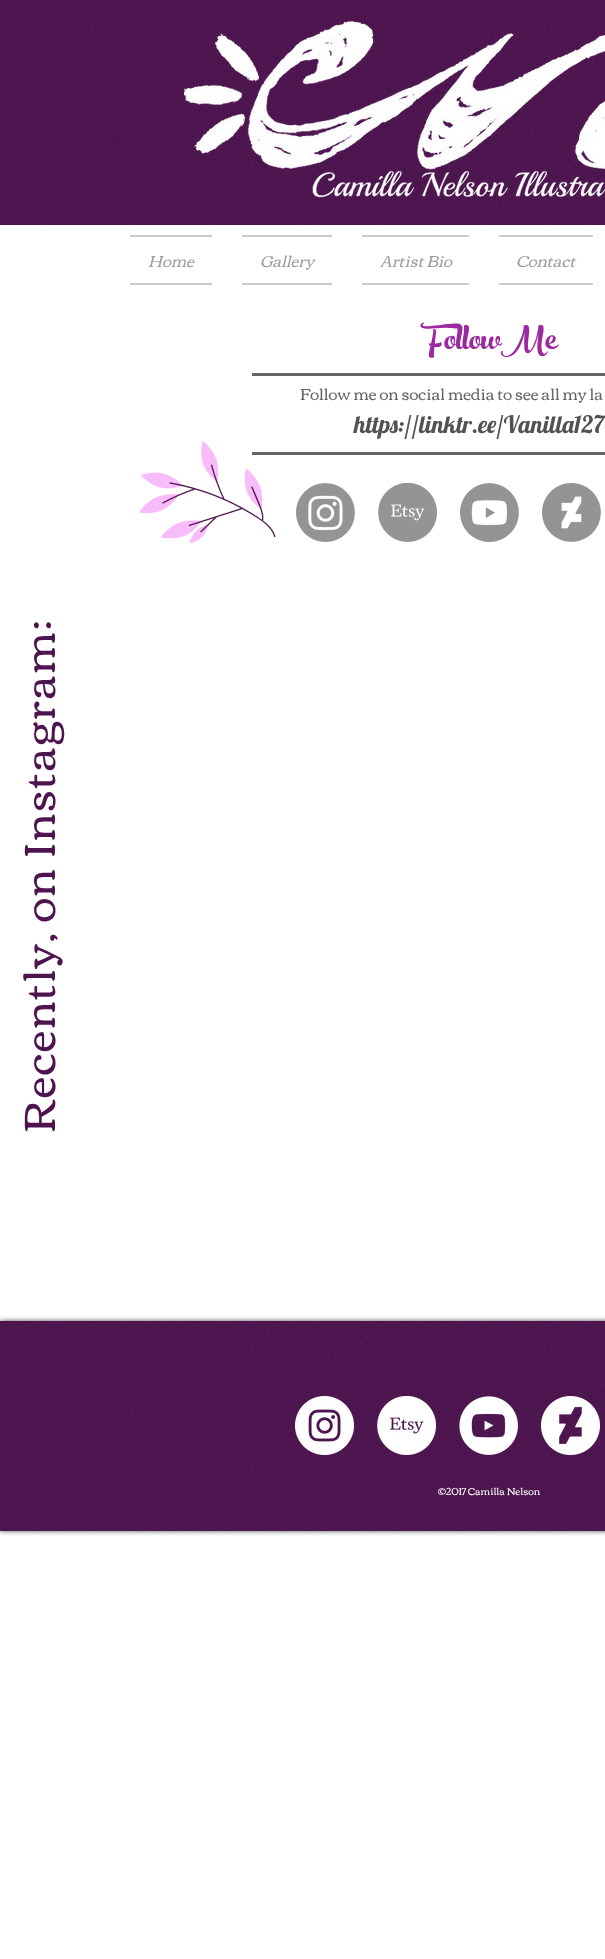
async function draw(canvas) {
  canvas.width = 605
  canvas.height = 1959
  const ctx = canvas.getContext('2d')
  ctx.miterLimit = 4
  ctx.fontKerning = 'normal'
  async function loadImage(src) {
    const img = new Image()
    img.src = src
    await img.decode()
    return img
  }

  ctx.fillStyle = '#fff'
  ctx.fillRect(0, 0, 605, 1959)
  ctx.fillStyle = '#4e1450'
  ctx.fillRect(0, 0, 605, 225)
  ctx.drawImage(await loadImage('image0.png'), 0, 0, 605, 225)
  ctx.drawImage(await loadImage('image1.png'), 184, 21, 421, 177)
  ctx.fillStyle = '#ccc'
  ctx.fillRect(130, 235, 82, 2)
  ctx.fillRect(130, 283, 82, 2)
  ctx.font = 'italic 16px Corben'
  ctx.fillStyle = '#9e9e9e'
  ctx.fillText('Home', 148, 267)
  ctx.fillStyle = '#ccc'
  ctx.fillRect(242, 235, 90, 2)
  ctx.fillRect(242, 283, 90, 2)
  ctx.fillStyle = '#9e9e9e'
  ctx.fillText('Gallery', 260, 267)
  ctx.fillStyle = '#ccc'
  ctx.fillRect(362, 235, 107, 2)
  ctx.fillRect(362, 283, 107, 2)
  ctx.fillStyle = '#9e9e9e'
  ctx.fillText('Artist Bio', 380, 267)
  ctx.fillStyle = '#ccc'
  ctx.fillRect(499, 235, 94, 2)
  ctx.fillRect(499, 283, 94, 2)
  ctx.fillStyle = '#9e9e9e'
  ctx.fillText('Contact', 516, 267)
  ctx.font = '51px "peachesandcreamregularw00"'
  ctx.fillStyle = '#9c299f'
  ctx.fillText('FollowMe', 423, 349)
  ctx.font = '16px Corben'
  ctx.fillStyle = '#666'
  ctx.fillText('Follow me on social media to see all my la', 300, 400)
  ctx.font = '24px Lobster'
  ctx.fillStyle = '#525252'
  ctx.fillText('https://linktr.ee/Vanilla127', 354, 433)
  ctx.fillStyle = '#666'
  ctx.fillRect(252, 373, 353, 3)
  ctx.fillRect(252, 452, 353, 3)
  ctx.drawImage(await loadImage('image2.png'), 139, 441, 137, 103)
  ctx.drawImage(await loadImage('image3.png'), 296, 483, 59, 59)
  ctx.drawImage(await loadImage('image4.png'), 378, 483, 59, 59)
  ctx.drawImage(await loadImage('image5.png'), 460, 483, 59, 59)
  ctx.drawImage(await loadImage('image6.png'), 542, 483, 59, 59)
  ctx.letterSpacing = '1.3px'
  ctx.font = '44px Corben'
  ctx.fillStyle = '#4e1450'
  ctx.save()
  ctx.translate(55, 1133)
  ctx.rotate(-90 * Math.PI / 180)
  ctx.fillText('Recently, on Instagram:', 0, 0)
  ctx.restore()
  ctx.fillStyle = '#000000b3'
  ctx.filter = 'blur(2.5px)'
  ctx.beginPath()
  ctx.rect(0, 1321, 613, 210)
  ctx.fill()
  ctx.filter = 'none'
  ctx.fillStyle = '#4e1450'
  ctx.fillRect(0, 1321, 605, 210)
  ctx.drawImage(await loadImage('image7.png'), 0, 1321, 605, 210)
  ctx.drawImage(await loadImage('image8.png'), 295, 1396, 59, 59)
  ctx.drawImage(await loadImage('image9.png'), 377, 1396, 59, 59)
  ctx.drawImage(await loadImage('image10.png'), 459, 1396, 59, 59)
  ctx.drawImage(await loadImage('image11.png'), 541, 1396, 59, 59)
  ctx.letterSpacing = '0px'
  ctx.font = '10px Corben'
  ctx.fillStyle = '#fff'
  ctx.fillText('©2017 Camilla Nelson', 438, 1495)
}

draw(document.querySelector('canvas'))
